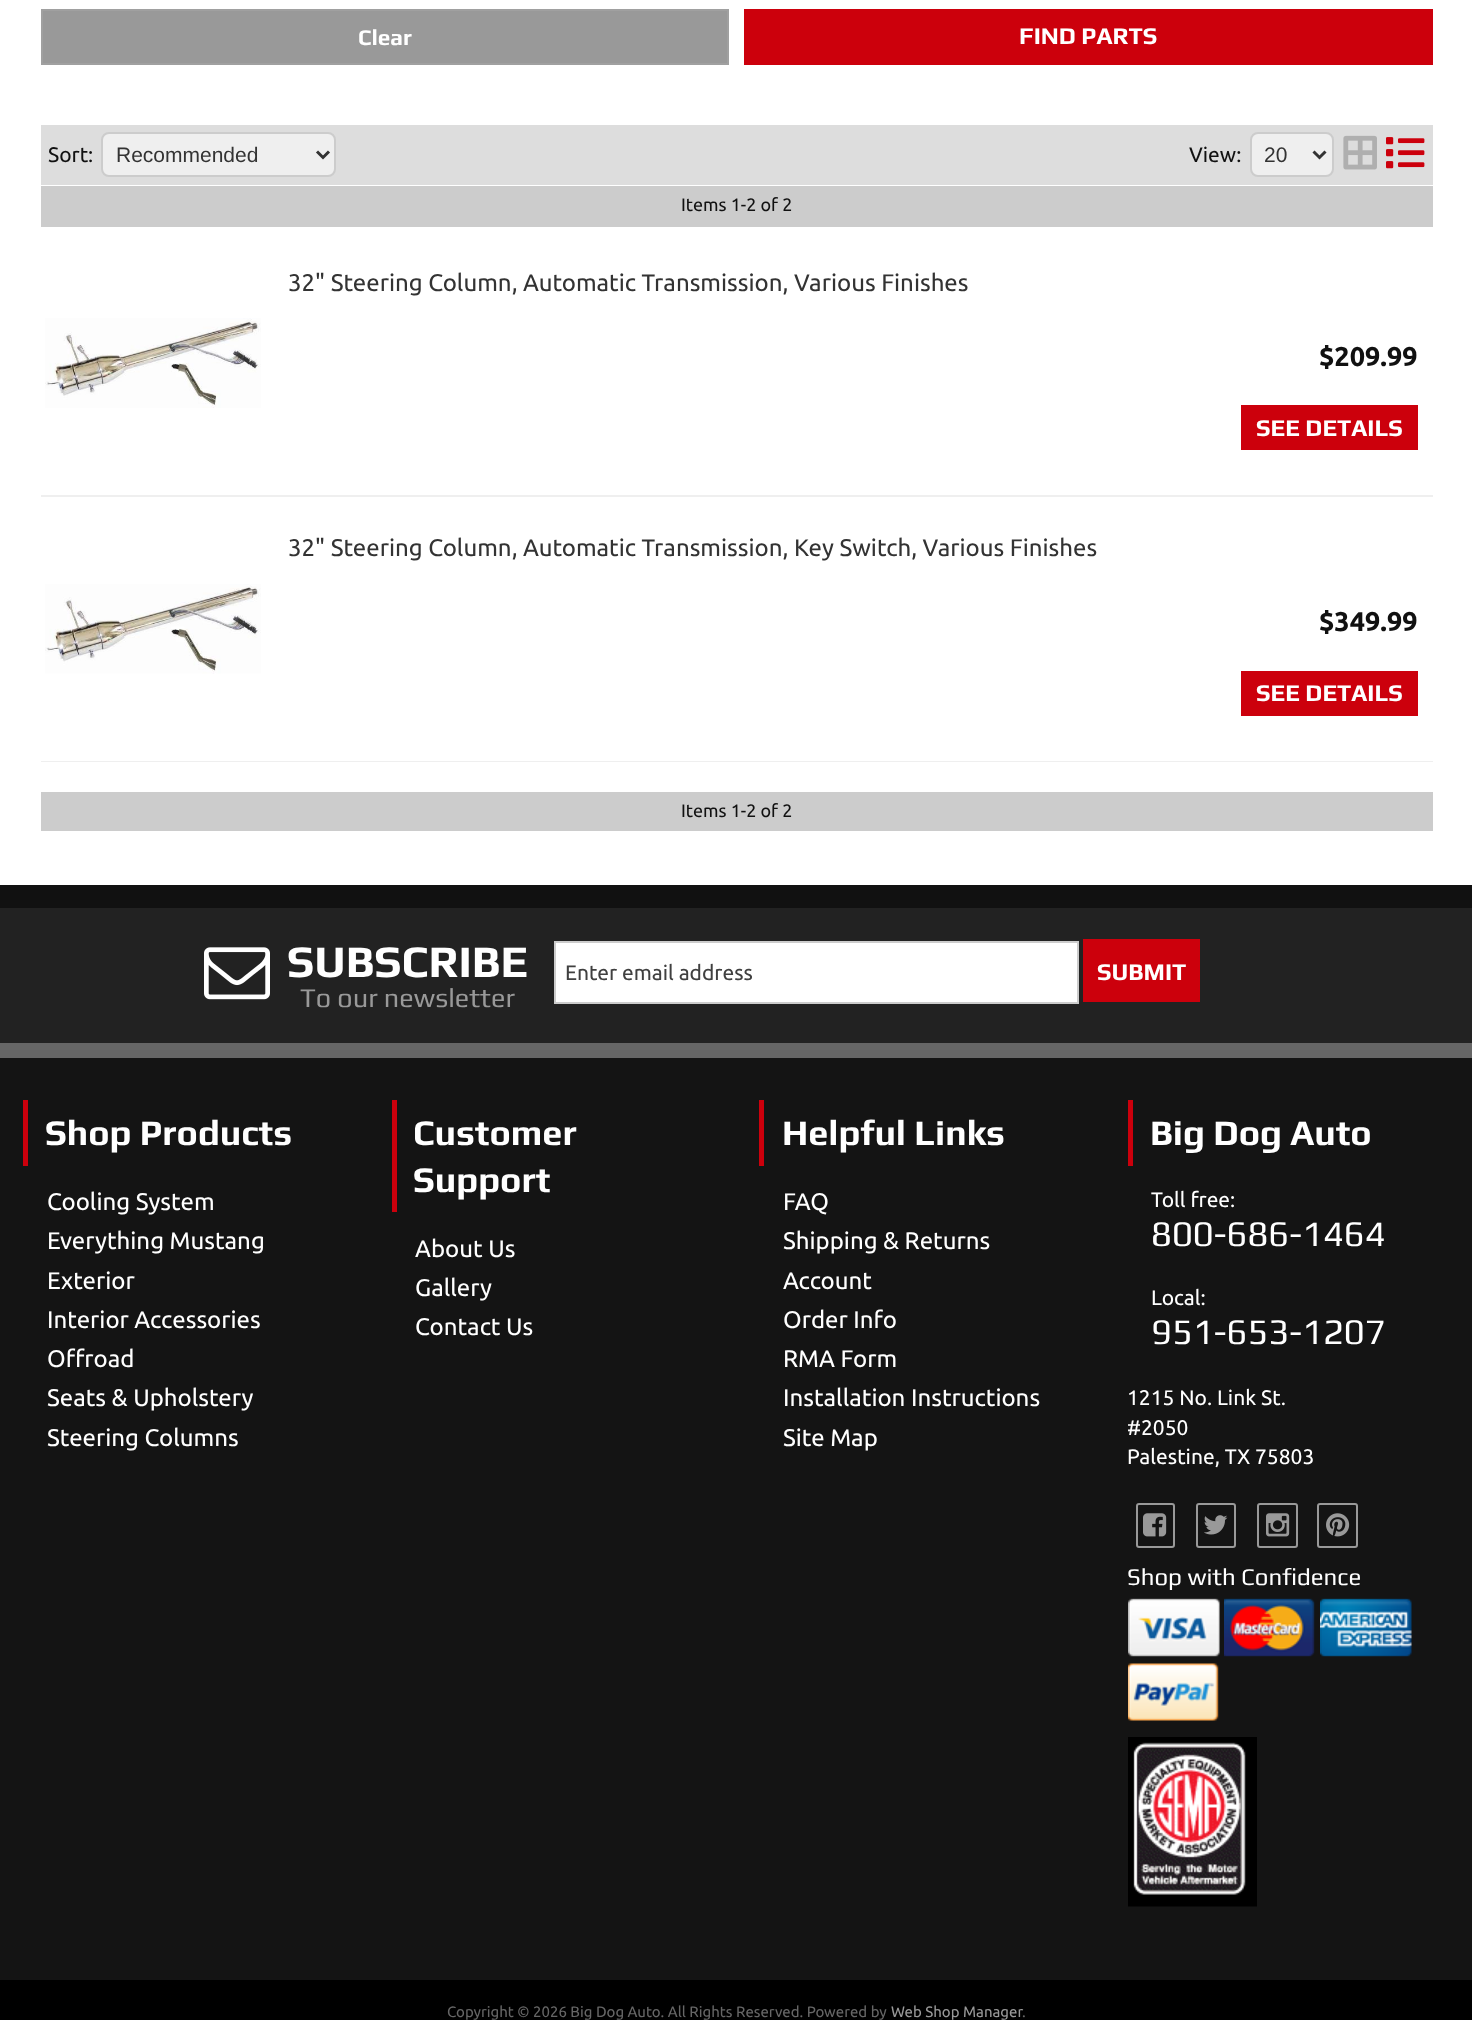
async function draw(canvas) {
  canvas.width = 1472
  canvas.height = 2020
  const ctx = canvas.getContext('2d')
  ctx.miterLimit = 4
  ctx.fontKerning = 'normal'
  async function loadImage(src) {
    const img = new Image()
    img.src = src
    await img.decode()
    return img
  }

  ctx.fillStyle = '#111'
  ctx.fillRect(0, 0, 1472, 2020)
  ctx.fillStyle = '#fff'
  ctx.fillRect(0, 0, 1472, 885)
  ctx.fillStyle = '#999'
  ctx.beginPath()
  ctx.rect(42, 10, 686, 54)
  ctx.fill()
  ctx.strokeStyle = '#a0a0a0'
  ctx.lineWidth = 2
  ctx.stroke()
  ctx.font = 'bold 22.5px Play'
  ctx.fillStyle = '#fff'
  ctx.fillText('Clear', 358, 45)
  ctx.fillStyle = '#cc000c'
  ctx.fillRect(744, 9, 689, 56)
  ctx.font = 'bold 24px Play'
  ctx.fillStyle = '#fff'
  ctx.fillText('FIND PARTS', 1019, 44)
  ctx.fillStyle = '#ddd'
  ctx.fillRect(41, 125, 1392, 60)
  ctx.font = '21px Ubuntu'
  ctx.fillStyle = '#111'
  ctx.fillText('Sort:', 48, 162)
  ctx.fillStyle = '#efefef'
  ctx.beginPath()
  ctx.roundRect(102, 133, 233, 43, 7)
  ctx.fill()
  ctx.strokeStyle = '#ccc'
  ctx.stroke()
  ctx.beginPath()
  ctx.moveTo(317, 151.5)
  ctx.lineTo(323, 157.5)
  ctx.lineTo(329, 151.5)
  ctx.strokeStyle = '#333'
  ctx.lineWidth = 3
  ctx.stroke()
  ctx.font = '21px Liberation Sans'
  ctx.fillStyle = '#333'
  ctx.fillText('Recommended', 116, 162)
  ctx.font = '21px Ubuntu'
  ctx.fillStyle = '#111'
  ctx.fillText('View:', 1189, 162)
  ctx.fillStyle = '#efefef'
  ctx.beginPath()
  ctx.roundRect(1251, 133, 82, 43, 7)
  ctx.fill()
  ctx.strokeStyle = '#ccc'
  ctx.lineWidth = 2
  ctx.stroke()
  ctx.beginPath()
  ctx.moveTo(1313.5, 151.5)
  ctx.lineTo(1319.5, 157.5)
  ctx.lineTo(1325.5, 151.5)
  ctx.strokeStyle = '#333'
  ctx.lineWidth = 3
  ctx.stroke()
  ctx.font = '21px Liberation Sans'
  ctx.fillStyle = '#333'
  ctx.fillText('20', 1264, 162)
  ctx.drawImage(await loadImage('image0.png'), 1343, 135, 34, 35)
  ctx.drawImage(await loadImage('image1.png'), 1386, 137, 39, 32)
  ctx.fillStyle = '#ccc'
  ctx.fillRect(41, 186, 1392, 41)
  ctx.font = '18px Ubuntu'
  ctx.fillStyle = '#111'
  ctx.fillText('Items 1-2 of 2', 681, 211)
  ctx.fillStyle = '#efefef'
  ctx.fillRect(41, 495, 1392, 2)
  ctx.font = '24px Ubuntu'
  ctx.fillStyle = '#333'
  ctx.fillText('32" Steering Column, Automatic Transmission, Various Finishes', 288, 291)
  ctx.drawImage(await loadImage('image2.png'), 45, 318, 216, 90)
  ctx.font = 'bold 27px Ubuntu'
  ctx.fillStyle = '#111'
  ctx.fillText('$209.99', 1319, 366)
  ctx.fillStyle = '#cc000c'
  ctx.fillRect(1241, 405, 177, 45)
  ctx.font = 'bold 24px Play'
  ctx.fillStyle = '#fff'
  ctx.fillText('SEE DETAILS', 1256, 436)
  ctx.fillStyle = '#efefef'
  ctx.fillRect(41, 761, 1392, 1)
  ctx.font = '24px Ubuntu'
  ctx.fillStyle = '#333'
  ctx.fillText('32" Steering Column, Automatic Transmission, Key Switch, Various Finishes', 288, 556)
  ctx.drawImage(await loadImage('image3.png'), 45, 584, 216, 90)
  ctx.font = 'bold 27px Ubuntu'
  ctx.fillStyle = '#111'
  ctx.fillText('$349.99', 1319, 631)
  ctx.fillStyle = '#cc000c'
  ctx.fillRect(1241, 671, 177, 45)
  ctx.font = 'bold 24px Play'
  ctx.fillStyle = '#fff'
  ctx.fillText('SEE DETAILS', 1256, 701)
  ctx.fillStyle = '#ccc'
  ctx.fillRect(41, 792, 1392, 39)
  ctx.font = '18px Ubuntu'
  ctx.fillStyle = '#111'
  ctx.fillText('Items 1-2 of 2', 681, 817)
  ctx.fillStyle = '#141414'
  ctx.fillRect(0, 1058, 1472, 922)
  ctx.fillStyle = '#222'
  ctx.fillRect(0, 908, 1472, 135)
  ctx.fillStyle = '#666'
  ctx.fillRect(0, 1043, 1472, 15)
  ctx.drawImage(await loadImage('image4.png'), 204, 947, 66, 53)
  ctx.font = 'bold 45px Play'
  ctx.fillStyle = '#fff'
  ctx.fillText('SUBSCRIBE', 287, 977)
  ctx.font = '27px Play'
  ctx.fillStyle = '#999'
  ctx.fillText('To our newsletter', 300, 1007)
  ctx.fillStyle = '#fff'
  ctx.beginPath()
  ctx.rect(555, 942, 523, 61)
  ctx.fill()
  ctx.strokeStyle = '#ccc'
  ctx.lineWidth = 2
  ctx.stroke()
  ctx.font = '21px Ubuntu'
  ctx.fillStyle = '#404040'
  ctx.fillText('Enter email address', 565, 980)
  ctx.fillStyle = '#cc000c'
  ctx.fillRect(1083, 939, 117, 63)
  ctx.font = 'bold 24px Play'
  ctx.fillStyle = '#fff'
  ctx.fillText('SUBMIT', 1097, 980)
  ctx.fillStyle = '#cc000c'
  ctx.fillRect(23, 1100, 5, 66)
  ctx.font = 'bold 36px Play'
  ctx.fillStyle = '#fff'
  ctx.fillText('Shop Products', 45, 1145)
  ctx.font = '24px Ubuntu'
  ctx.fillText('Cooling System', 47, 1210)
  ctx.fillText('Everything Mustang', 47, 1249)
  ctx.fillText('Exterior', 47, 1289)
  ctx.fillText('Interior Accessories', 47, 1328)
  ctx.fillText('Offroad', 47, 1367)
  ctx.fillText('Seats & Upholstery', 47, 1406)
  ctx.fillText('Steering Columns', 47, 1446)
  ctx.fillStyle = '#cc000c'
  ctx.fillRect(392, 1100, 5, 112)
  ctx.font = 'bold 36px Play'
  ctx.fillStyle = '#fff'
  ctx.fillText('Customer', 413, 1145)
  ctx.fillText('Support', 413, 1192)
  ctx.font = '24px Ubuntu'
  ctx.fillText('About Us', 415, 1257)
  ctx.fillText('Gallery', 415, 1296)
  ctx.fillText('Contact Us', 415, 1335)
  ctx.fillStyle = '#cc000c'
  ctx.fillRect(759, 1100, 5, 66)
  ctx.font = 'bold 36px Play'
  ctx.fillStyle = '#fff'
  ctx.fillText('Helpful Links', 782, 1145)
  ctx.font = '24px Ubuntu'
  ctx.fillText('FAQ', 783, 1210)
  ctx.fillText('Shipping & Returns', 783, 1249)
  ctx.fillText('Account', 783, 1289)
  ctx.fillText('Order Info', 783, 1328)
  ctx.fillText('RMA Form', 783, 1367)
  ctx.fillText('Installation Instructions', 783, 1406)
  ctx.fillText('Site Map', 783, 1446)
  ctx.fillStyle = '#cc000c'
  ctx.fillRect(1128, 1100, 5, 66)
  ctx.font = 'bold 36px Play'
  ctx.fillStyle = '#fff'
  ctx.fillText('Big Dog Auto', 1150, 1145)
  ctx.font = '21px Ubuntu'
  ctx.fillText('Toll free:', 1151, 1207)
  ctx.font = '36px Play'
  ctx.fillText('800-686-1464', 1151, 1246)
  ctx.font = '21px Ubuntu'
  ctx.fillText('Local:', 1151, 1305)
  ctx.font = '36px Play'
  ctx.fillText('951-653-1207', 1151, 1344)
  ctx.font = '21px Ubuntu'
  ctx.fillText('1215 No. Link St.', 1127, 1405)
  ctx.fillText('#2050', 1127, 1435)
  ctx.fillText('Palestine, TX 75803', 1127, 1464)
  ctx.beginPath()
  ctx.roundRect(1137, 1504, 37, 43, 2)
  ctx.strokeStyle = '#999'
  ctx.stroke()
  ctx.drawImage(await loadImage('image5.png'), 1143, 1513, 24, 24)
  ctx.beginPath()
  ctx.roundRect(1197, 1504, 38, 43, 2)
  ctx.stroke()
  ctx.drawImage(await loadImage('image6.png'), 1204, 1515, 24, 20)
  ctx.beginPath()
  ctx.roundRect(1258, 1504, 39, 43, 2)
  ctx.stroke()
  ctx.drawImage(await loadImage('image7.png'), 1266, 1513, 24, 24)
  ctx.beginPath()
  ctx.roundRect(1318, 1504, 39, 43, 2)
  ctx.stroke()
  ctx.drawImage(await loadImage('image8.png'), 1326, 1513, 24, 24)
  ctx.font = '24px Play'
  ctx.fillText('Shop with Confidence', 1127, 1585)
  ctx.drawImage(await loadImage('image9.png'), 1128, 1598, 92, 59)
  ctx.drawImage(await loadImage('image10.png'), 1224, 1598, 91, 59)
  ctx.drawImage(await loadImage('image11.png'), 1320, 1598, 92, 59)
  ctx.drawImage(await loadImage('image12.png'), 1128, 1663, 91, 58)
  ctx.drawImage(await loadImage('image13.png'), 1128, 1737, 129, 170)
  ctx.fillStyle = '#000'
  ctx.fillRect(0, 1980, 1472, 40)
  ctx.font = '15px Ubuntu'
  ctx.fillStyle = '#666'
  ctx.fillText('Copyright © 2026 Big Dog Auto. All Rights Reserved. Powered by', 447, 2017)
  ctx.fillStyle = '#999'
  ctx.fillText('Web Shop Manager', 891, 2017)
  ctx.fillStyle = '#666'
  ctx.fillText('.', 1022, 2017)
}

draw(document.querySelector('canvas'))
